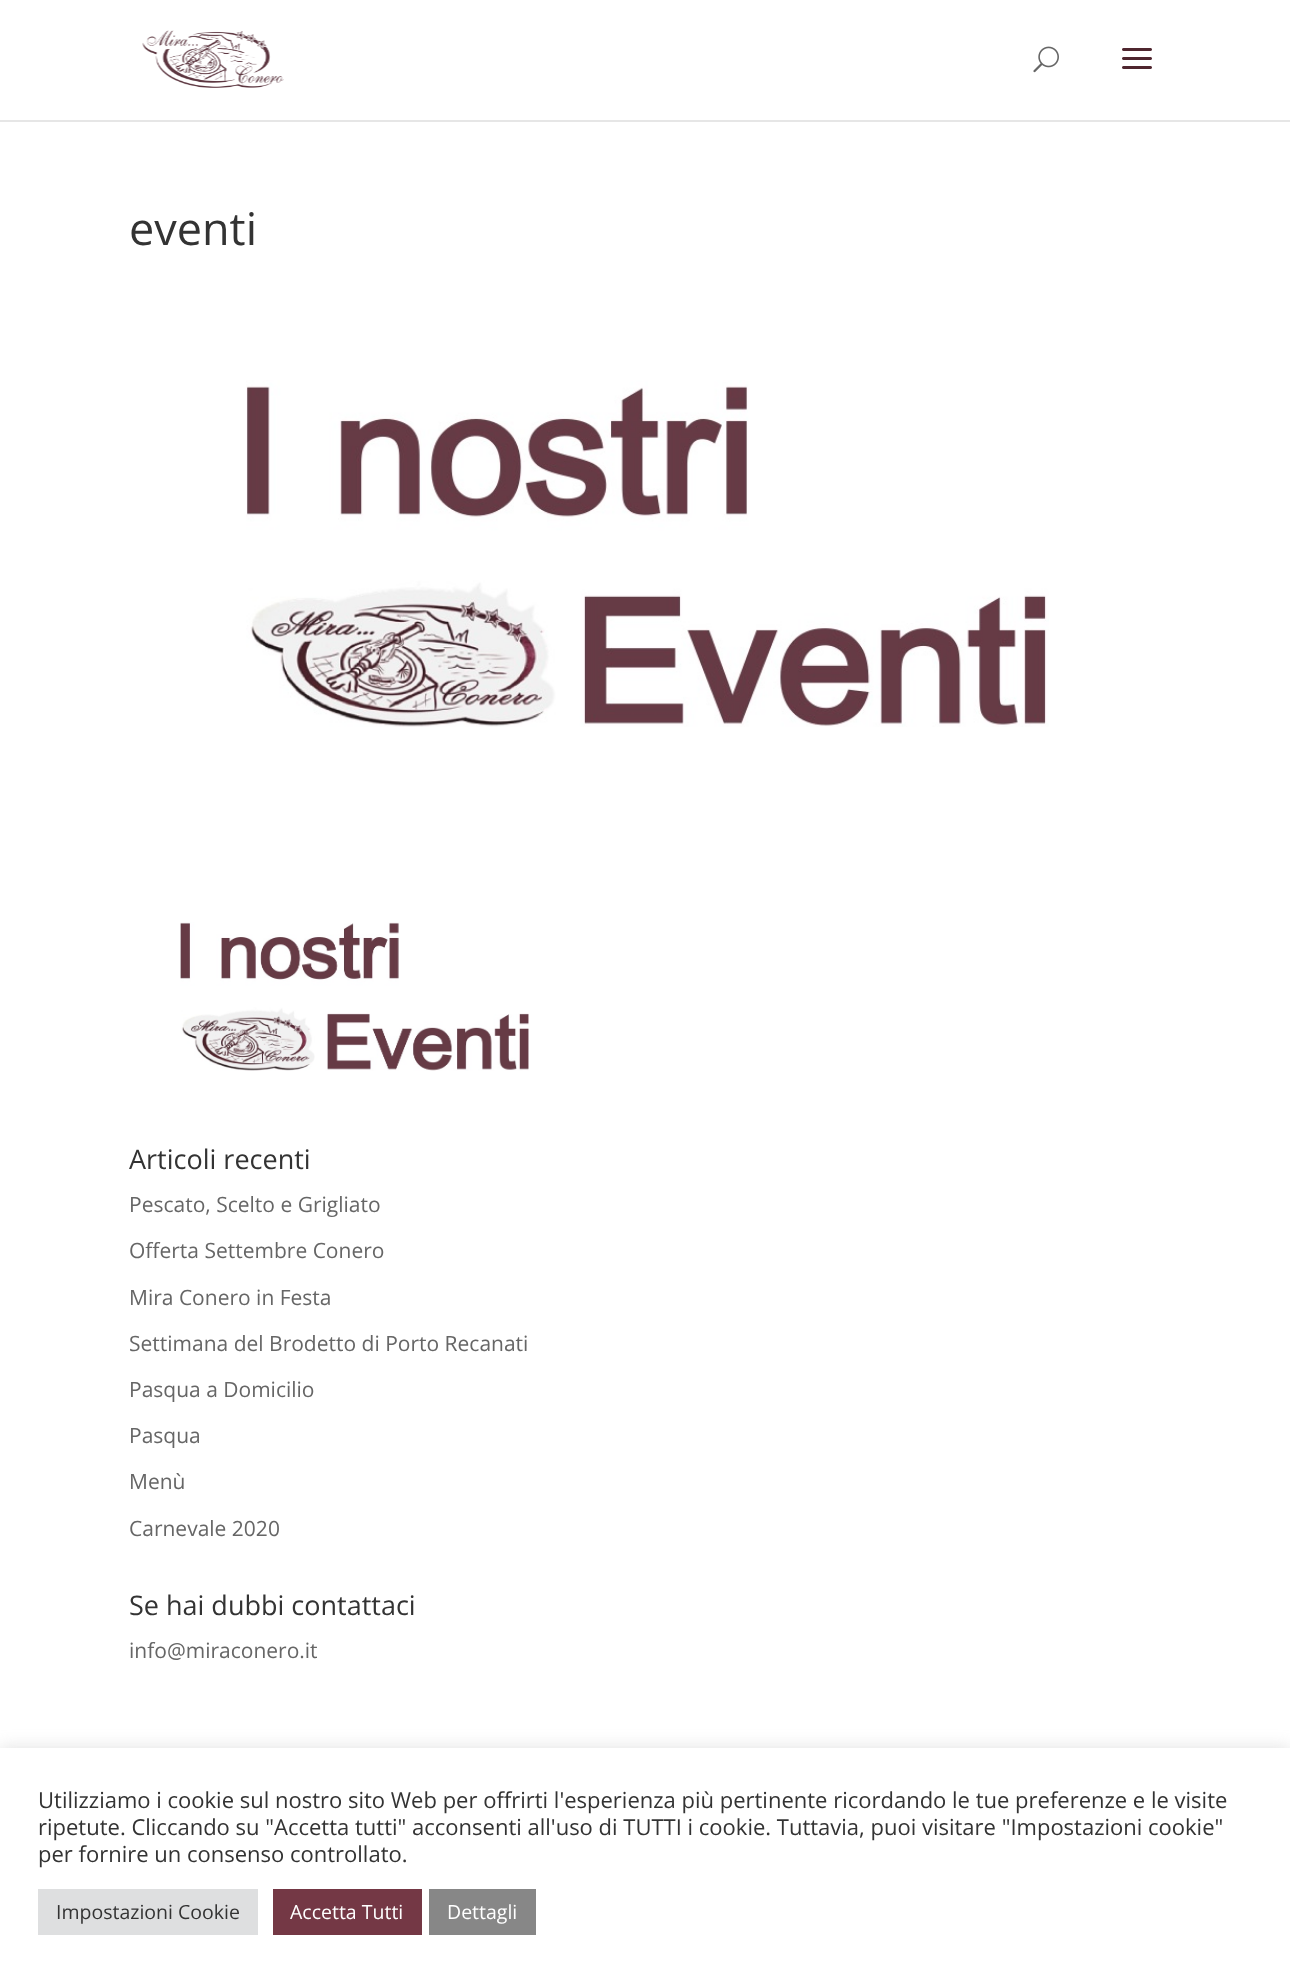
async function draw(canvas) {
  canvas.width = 1290
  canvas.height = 1980
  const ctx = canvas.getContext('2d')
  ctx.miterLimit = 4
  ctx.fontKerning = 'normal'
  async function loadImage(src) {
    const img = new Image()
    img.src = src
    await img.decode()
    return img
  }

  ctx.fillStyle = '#fff'
  ctx.fillRect(0, 0, 1290, 1980)
  ctx.fillStyle = '#e6e6e6'
  ctx.fillRect(0, 120, 1290, 2)
  ctx.drawImage(await loadImage('image0.png'), 142, 30, 142, 58)
  ctx.drawImage(await loadImage('image1.png'), 1033, 46, 26, 27)
  ctx.drawImage(await loadImage('image2.png'), 1122, 48, 30, 21)
  ctx.font = '45px Open Sans'
  ctx.fillStyle = '#333'
  ctx.fillText('eventi', 129, 245)
  ctx.drawImage(await loadImage('image3.png'), 246, 380, 803, 347)
  ctx.drawImage(await loadImage('image4.png'), 180, 922, 349, 149)
  ctx.font = '27px Open Sans'
  ctx.fillText('Articoli recenti', 129, 1169)
  ctx.font = '21px Open Sans'
  ctx.fillStyle = '#666'
  ctx.fillText('Pescato, Scelto e Grigliato', 129, 1212)
  ctx.fillText('Offerta Settembre Conero', 129, 1258)
  ctx.fillText('Mira Conero in Festa', 129, 1305)
  ctx.fillText('Settimana del Brodetto di Porto Recanati', 129, 1351)
  ctx.fillText('Pasqua a Domicilio', 129, 1397)
  ctx.fillText('Pasqua', 129, 1443)
  ctx.fillText('Menù', 129, 1489)
  ctx.fillText('Carnevale 2020', 129, 1536)
  ctx.font = '27px Open Sans'
  ctx.fillStyle = '#333'
  ctx.fillText('Se hai dubbi contattaci', 129, 1615)
  ctx.font = '21px Open Sans'
  ctx.fillStyle = '#666'
  ctx.fillText('info@miraconero.it', 129, 1658)
  ctx.fillStyle = '#acabab4d'
  ctx.filter = 'blur(7.5px)'
  ctx.beginPath()
  ctx.rect(0, 1746, 1290, 233)
  ctx.fill()
  ctx.filter = 'none'
  ctx.fillStyle = '#fff'
  ctx.fillRect(0, 1748, 1290, 232)
  ctx.font = '22px Open Sans'
  ctx.fillStyle = '#333'
  ctx.fillText('Utilizziamo i cookie sul nostro sito Web per offrirti l\'esperienza più pertinente ricordando le tue preferenze e le visite', 38, 1808)
  ctx.fillText('ripetute. Cliccando su "Accetta tutti" acconsenti all\'uso di TUTTI i cookie. Tuttavia, puoi visitare "Impostazioni cookie"', 38, 1835)
  ctx.fillText('per fornire un consenso controllato.', 38, 1862)
  ctx.fillStyle = '#dedfe0'
  ctx.fillRect(38, 1889, 220, 46)
  ctx.font = '19.5px Open Sans'
  ctx.fillStyle = '#333'
  ctx.fillText('Impostazioni Cookie', 56, 1919)
  ctx.fillStyle = '#743845'
  ctx.fillRect(273, 1889, 149, 46)
  ctx.fillStyle = '#fff'
  ctx.fillText('Accetta Tutti', 290, 1919)
  ctx.fillStyle = '#878787'
  ctx.fillRect(429, 1889, 107, 46)
  ctx.fillStyle = '#fff'
  ctx.fillText('Dettagli', 447, 1919)
}

draw(document.querySelector('canvas'))
